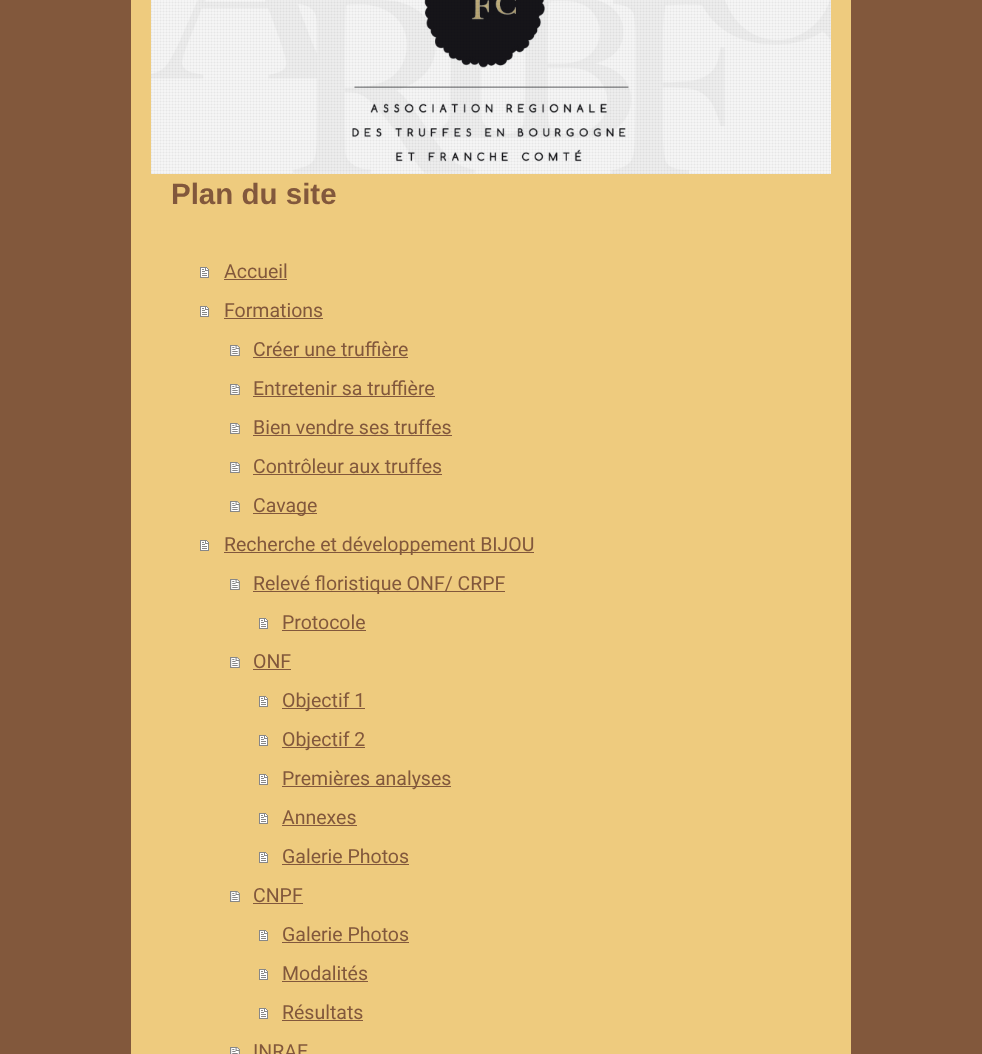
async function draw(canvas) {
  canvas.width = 982
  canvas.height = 1054
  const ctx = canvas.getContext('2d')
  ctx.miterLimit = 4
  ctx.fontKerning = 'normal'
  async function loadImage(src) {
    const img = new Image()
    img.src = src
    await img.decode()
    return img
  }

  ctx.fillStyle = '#82583c'
  ctx.fillRect(0, 0, 982, 1054)
  ctx.fillStyle = '#eecb7e'
  ctx.fillRect(131, 0, 720, 1054)
  ctx.drawImage(await loadImage('image0.png'), 151, 0, 680, 174)
  ctx.drawImage(await loadImage('image1.png'), 151, 0, 680, 174)
  ctx.font = 'bold 29.5px Liberation Sans'
  ctx.fillStyle = '#82583c'
  ctx.fillText('Plan du site', 171, 204)
  ctx.drawImage(await loadImage('image2.png'), 200, 267, 9, 11)
  ctx.font = '19.5px Roboto'
  ctx.fillText('Accueil', 224, 278)
  ctx.fillRect(224, 279, 63, 1)
  ctx.drawImage(await loadImage('image2.png'), 200, 306, 9, 11)
  ctx.fillText('Formations', 224, 317)
  ctx.fillRect(224, 318, 99, 1)
  ctx.drawImage(await loadImage('image3.png'), 230, 345, 10, 11)
  ctx.fillText('Créer une truffière', 253, 356)
  ctx.fillRect(253, 357, 155, 1)
  ctx.drawImage(await loadImage('image3.png'), 230, 384, 10, 11)
  ctx.fillText('Entretenir sa truffière', 253, 395)
  ctx.fillRect(253, 396, 182, 1)
  ctx.drawImage(await loadImage('image3.png'), 230, 423, 10, 11)
  ctx.fillText('Bien vendre ses truffes', 253, 434)
  ctx.fillRect(253, 435, 199, 1)
  ctx.drawImage(await loadImage('image3.png'), 230, 462, 10, 11)
  ctx.fillText('Contrôleur aux truffes', 253, 473)
  ctx.fillRect(253, 474, 189, 1)
  ctx.drawImage(await loadImage('image3.png'), 230, 501, 10, 11)
  ctx.fillRect(253, 513, 64, 1)
  ctx.fillText('Cavage', 253, 512)
  ctx.drawImage(await loadImage('image2.png'), 200, 540, 9, 11)
  ctx.fillRect(224, 552, 310, 1)
  ctx.fillText('Recherche et développement BIJOU', 224, 551)
  ctx.drawImage(await loadImage('image3.png'), 230, 579, 10, 11)
  ctx.fillRect(253, 591, 252, 1)
  ctx.fillText('Relevé floristique ONF/ CRPF', 253, 590)
  ctx.drawImage(await loadImage('image2.png'), 259, 618, 9, 11)
  ctx.fillText('Protocole', 282, 629)
  ctx.fillRect(282, 630, 84, 1)
  ctx.drawImage(await loadImage('image3.png'), 230, 657, 10, 11)
  ctx.fillText('ONF', 253, 668)
  ctx.fillRect(253, 669, 38, 1)
  ctx.drawImage(await loadImage('image2.png'), 259, 696, 9, 11)
  ctx.fillRect(282, 708, 83, 1)
  ctx.fillText('Objectif 1', 282, 707)
  ctx.drawImage(await loadImage('image2.png'), 259, 735, 9, 11)
  ctx.fillRect(282, 747, 83, 1)
  ctx.fillText('Objectif 2', 282, 746)
  ctx.drawImage(await loadImage('image2.png'), 259, 774, 9, 11)
  ctx.fillRect(282, 786, 169, 1)
  ctx.fillText('Premières analyses', 282, 785)
  ctx.drawImage(await loadImage('image2.png'), 259, 813, 9, 11)
  ctx.fillText('Annexes', 282, 824)
  ctx.fillRect(282, 825, 75, 1)
  ctx.drawImage(await loadImage('image2.png'), 259, 852, 9, 11)
  ctx.fillText('Galerie Photos', 282, 863)
  ctx.fillRect(282, 864, 127, 1)
  ctx.drawImage(await loadImage('image3.png'), 230, 891, 10, 11)
  ctx.fillText('CNPF', 253, 902)
  ctx.fillRect(253, 903, 50, 1)
  ctx.drawImage(await loadImage('image2.png'), 259, 930, 9, 11)
  ctx.fillText('Galerie Photos', 282, 941)
  ctx.fillRect(282, 942, 127, 1)
  ctx.drawImage(await loadImage('image2.png'), 259, 969, 9, 11)
  ctx.fillText('Modalités', 282, 980)
  ctx.fillRect(282, 981, 86, 1)
  ctx.drawImage(await loadImage('image2.png'), 259, 1008, 9, 11)
  ctx.fillText('Résultats', 282, 1019)
  ctx.fillRect(282, 1020, 81, 1)
  ctx.drawImage(await loadImage('image4.png'), 230, 1047, 10, 7)
  ctx.fillText('INRAE', 253, 1058)
}

draw(document.querySelector('canvas'))
